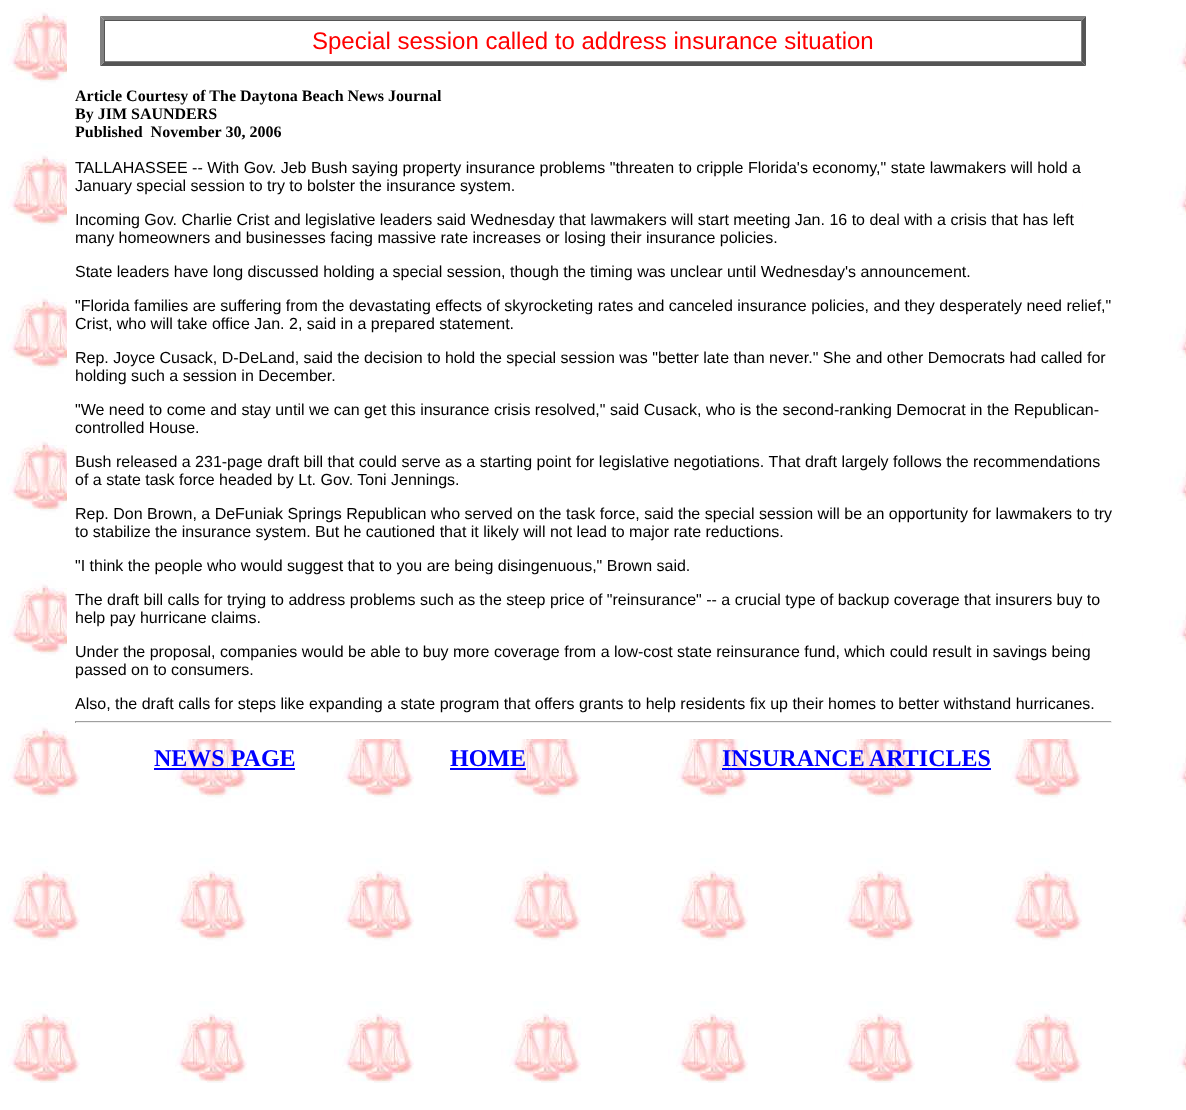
async function draw(canvas) {
  canvas.width = 1186
  canvas.height = 1110
  const ctx = canvas.getContext('2d')
  ctx.miterLimit = 4
  ctx.fontKerning = 'normal'
  async function loadImage(src) {
    const img = new Image()
    img.src = src
    await img.decode()
    return img
  }

  ctx.fillStyle = '#fff'
  ctx.fillRect(0, 0, 1186, 1110)
  ctx.drawImage(await loadImage('image0.png'), 6, 8, 1180, 1075)
  ctx.fillRect(67, 8, 1015, 731)
  ctx.fillStyle = '#808080'
  ctx.beginPath()
  ctx.moveTo(100, 16)
  ctx.lineTo(1086, 16)
  ctx.lineTo(1082, 20)
  ctx.lineTo(104, 20)
  ctx.closePath()
  ctx.fill()
  ctx.fillStyle = '#555'
  ctx.beginPath()
  ctx.moveTo(1086, 16)
  ctx.lineTo(1086, 66)
  ctx.lineTo(1082, 62)
  ctx.lineTo(1082, 20)
  ctx.closePath()
  ctx.fill()
  ctx.beginPath()
  ctx.moveTo(1086, 66)
  ctx.lineTo(100, 66)
  ctx.lineTo(104, 62)
  ctx.lineTo(1082, 62)
  ctx.closePath()
  ctx.fill()
  ctx.fillStyle = '#808080'
  ctx.beginPath()
  ctx.moveTo(100, 66)
  ctx.lineTo(100, 16)
  ctx.lineTo(104, 20)
  ctx.lineTo(104, 62)
  ctx.closePath()
  ctx.fill()
  ctx.fillStyle = '#555'
  ctx.fillRect(104, 20, 978, 1)
  ctx.fillStyle = '#808080'
  ctx.fillRect(1081, 20, 1, 42)
  ctx.fillRect(104, 61, 978, 1)
  ctx.fillStyle = '#555'
  ctx.fillRect(104, 20, 1, 42)
  ctx.font = '24px Liberation Sans'
  ctx.fillStyle = '#f00'
  ctx.fillText('Special session called to address insurance situation', 312, 49)
  ctx.font = 'bold 16px Liberation Serif'
  ctx.fillStyle = '#000'
  ctx.fillText('Article Courtesy of The Daytona Beach News Journal', 75, 101)
  ctx.fillText('By JIM SAUNDERS', 75, 119)
  ctx.fillText('Published  November 30, 2006', 75, 137)
  ctx.font = '16px Liberation Sans'
  ctx.fillText('TALLAHASSEE -- With Gov. Jeb Bush saying property insurance problems "threaten to cripple Florida\'s economy," state lawmakers will hold a', 75, 173)
  ctx.fillText('January special session to try to bolster the insurance system.', 75, 191)
  ctx.fillText('Incoming Gov. Charlie Crist and legislative leaders said Wednesday that lawmakers will start meeting Jan. 16 to deal with a crisis that has left', 75, 225)
  ctx.fillText('many homeowners and businesses facing massive rate increases or losing their insurance policies.', 75, 243)
  ctx.fillText('State leaders have long discussed holding a special session, though the timing was unclear until Wednesday\'s announcement.', 75, 277)
  ctx.fillText('"Florida families are suffering from the devastating effects of skyrocketing rates and canceled insurance policies, and they desperately need relief,"', 75, 311)
  ctx.fillText('Crist, who will take office Jan. 2, said in a prepared statement.', 75, 329)
  ctx.fillText('Rep. Joyce Cusack, D-DeLand, said the decision to hold the special session was "better late than never." She and other Democrats had called for', 75, 363)
  ctx.fillText('holding such a session in December.', 75, 381)
  ctx.fillText('"We need to come and stay until we can get this insurance crisis resolved," said Cusack, who is the second-ranking Democrat in the Republican-', 75, 415)
  ctx.fillText('controlled House.', 75, 433)
  ctx.fillText('Bush released a 231-page draft bill that could serve as a starting point for legislative negotiations. That draft largely follows the recommendations', 75, 467)
  ctx.fillText('of a state task force headed by Lt. Gov. Toni Jennings.', 75, 485)
  ctx.fillText('Rep. Don Brown, a DeFuniak Springs Republican who served on the task force, said the special session will be an opportunity for lawmakers to try', 75, 519)
  ctx.fillText('to stabilize the insurance system. But he cautioned that it likely will not lead to major rate reductions.', 75, 537)
  ctx.fillText('"I think the people who would suggest that to you are being disingenuous," Brown said.', 75, 571)
  ctx.fillText('The draft bill calls for trying to address problems such as the steep price of "reinsurance" -- a crucial type of backup coverage that insurers buy to', 75, 605)
  ctx.fillText('help pay hurricane claims.', 75, 623)
  ctx.fillText('Under the proposal, companies would be able to buy more coverage from a low-cost state reinsurance fund, which could result in savings being', 75, 657)
  ctx.fillText('passed on to consumers.', 75, 675)
  ctx.fillText('Also, the draft calls for steps like expanding a state program that offers grants to help residents fix up their homes to better withstand hurricanes.', 75, 709)
  ctx.fillStyle = '#9f9f9f'
  ctx.fillRect(75, 721, 1037, 1)
  ctx.fillStyle = '#eee'
  ctx.fillRect(1111, 721, 1, 2)
  ctx.fillRect(75, 722, 1037, 1)
  ctx.fillStyle = '#9f9f9f'
  ctx.fillRect(75, 721, 1, 2)
  ctx.font = 'bold 24px Liberation Serif'
  ctx.fillStyle = '#00f'
  ctx.fillText('NEWS PAGE', 154, 766)
  ctx.fillRect(154, 768, 141, 2)
  ctx.fillText('HOME', 450, 766)
  ctx.fillRect(450, 768, 76, 2)
  ctx.fillText('INSURANCE', 722, 766)
  ctx.fillRect(722, 768, 269, 2)
  ctx.fillText('ARTICLES', 869, 766)
}

draw(document.querySelector('canvas'))
